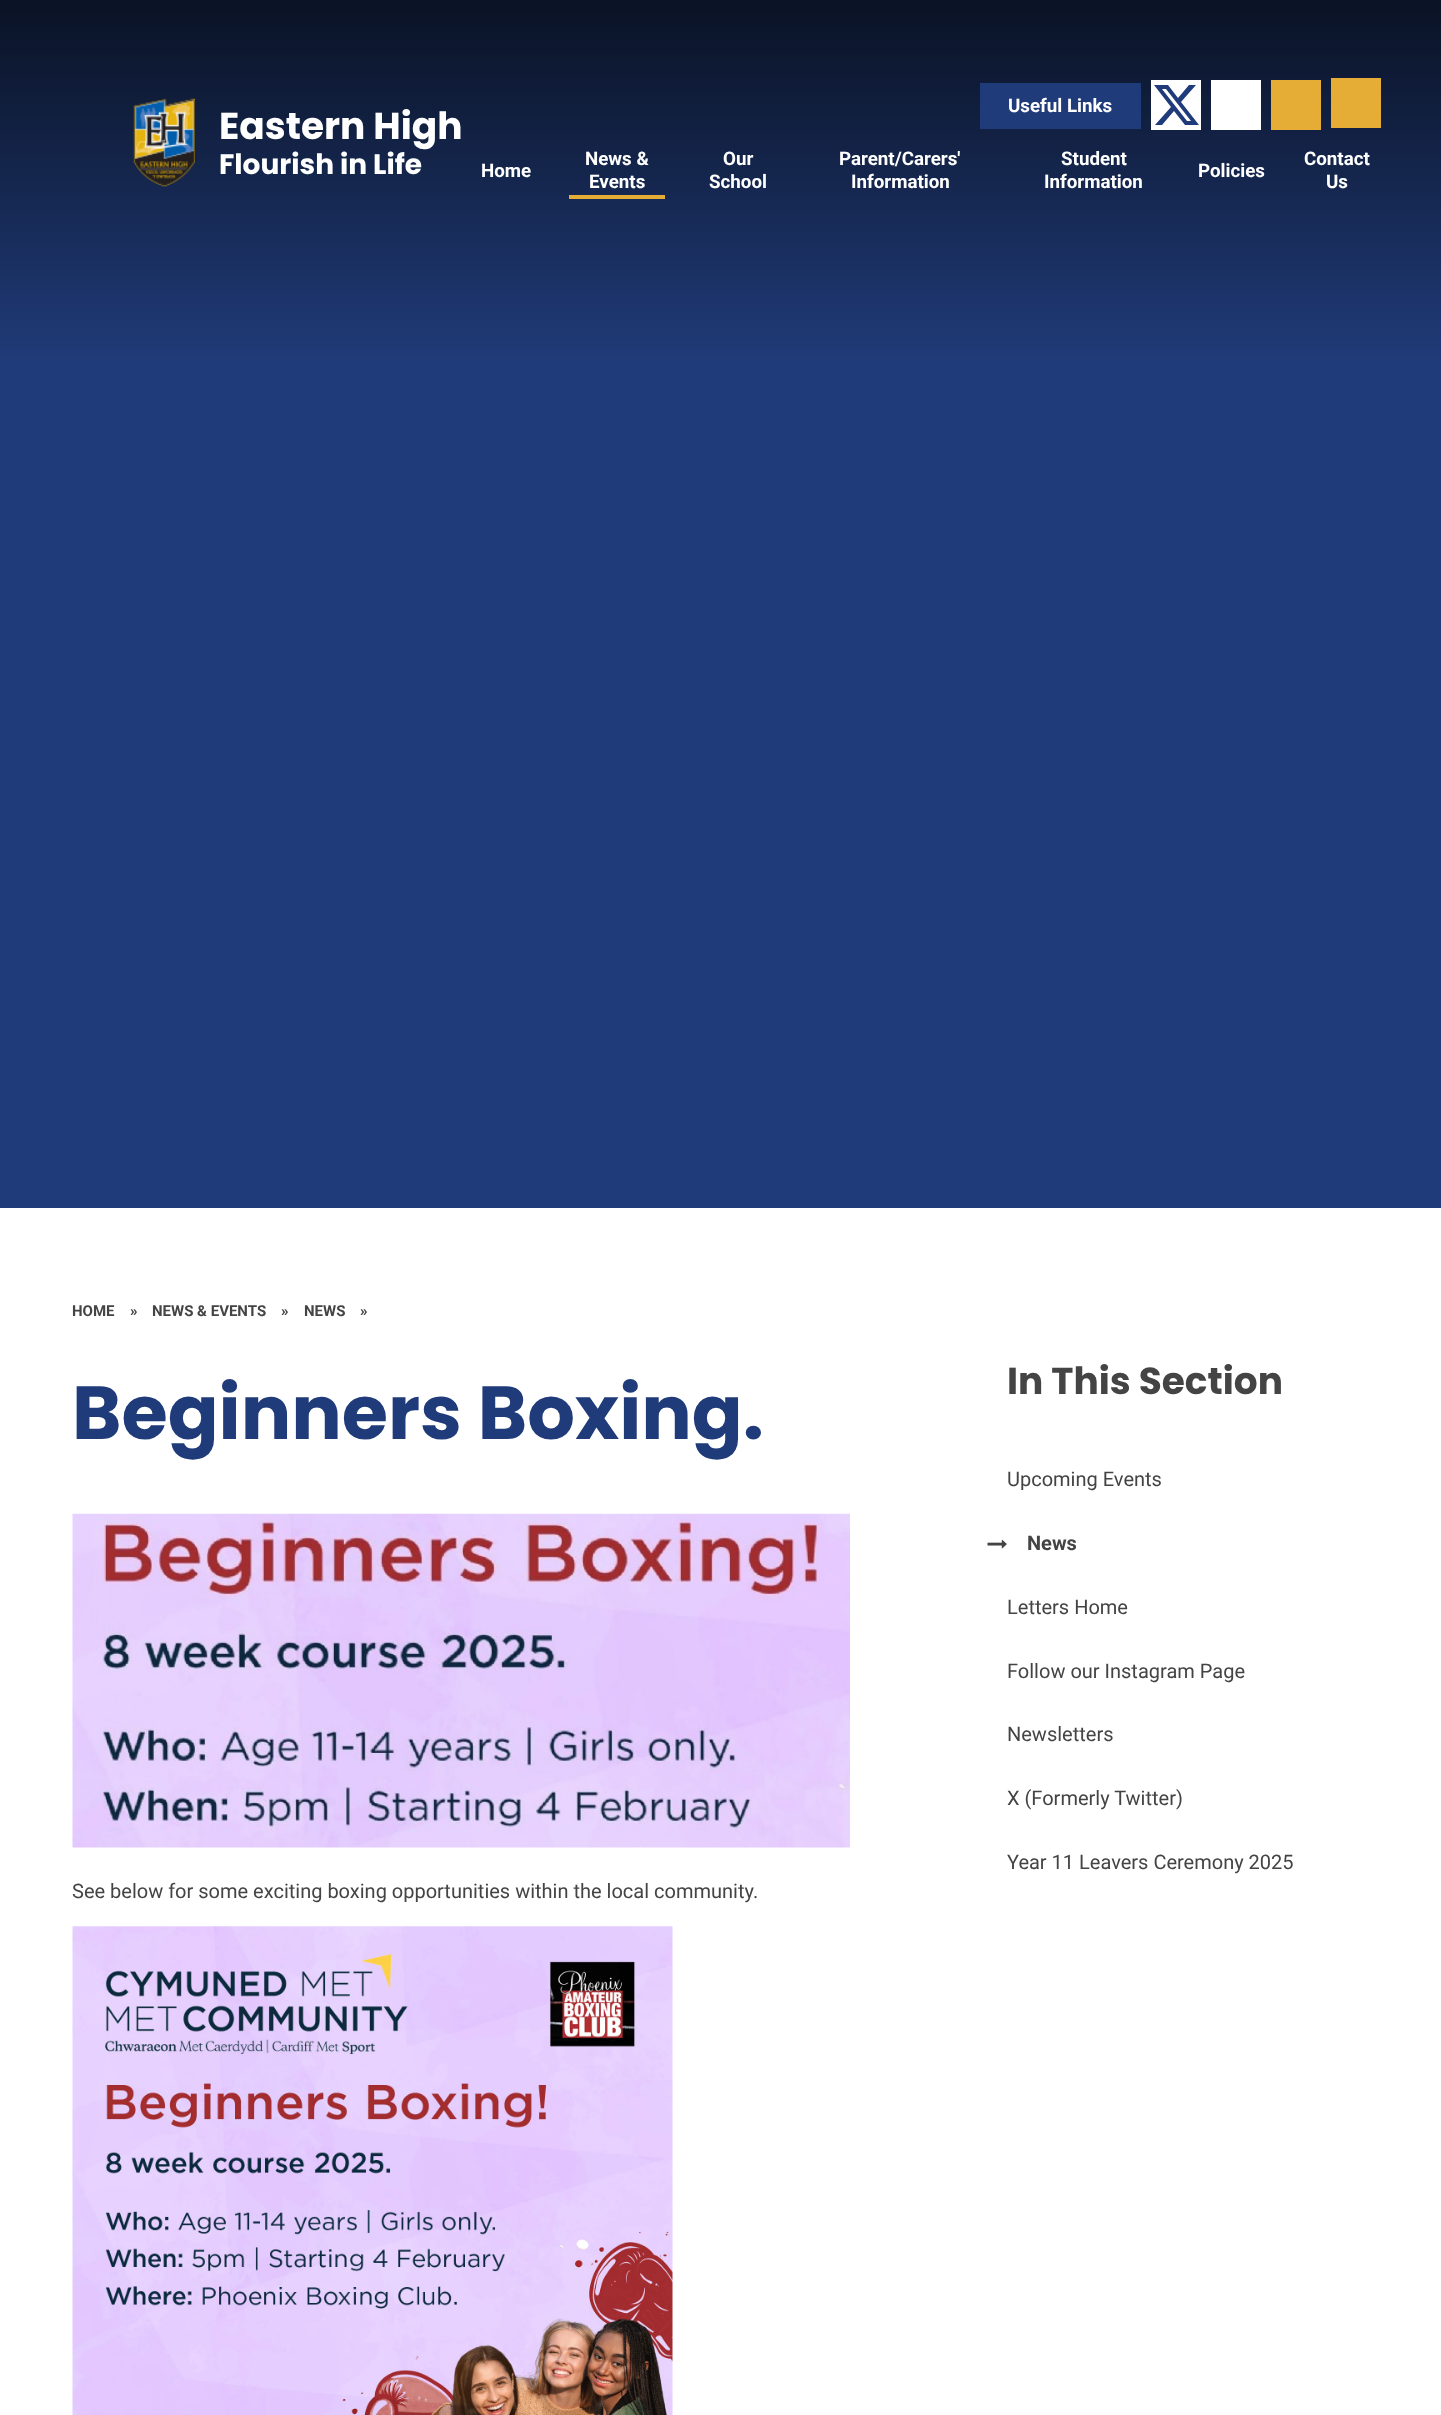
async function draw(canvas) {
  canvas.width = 1441
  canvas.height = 2415
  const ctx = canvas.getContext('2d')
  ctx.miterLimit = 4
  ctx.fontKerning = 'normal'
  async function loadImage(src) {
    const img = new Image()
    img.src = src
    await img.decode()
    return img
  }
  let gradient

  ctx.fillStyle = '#fff'
  ctx.fillRect(0, 0, 1441, 2415)
  ctx.fillStyle = '#203b7a'
  ctx.fillRect(0, 363, 1441, 845)
  gradient = ctx.createLinearGradient(721, 363, 721, 0)
  gradient.addColorStop(0, '#203b79')
  gradient.addColorStop(1, '#0a1224')
  ctx.fillStyle = gradient
  ctx.fillRect(0, 0, 1441, 363)
  ctx.drawImage(await loadImage('image0.png'), 133, 98, 62, 89)
  ctx.font = 'bold 37.5px Poppins'
  ctx.fillStyle = '#fff'
  ctx.fillText('Eastern High', 219, 139)
  ctx.font = 'bold 28px Poppins'
  ctx.fillText('Flourish in Life', 219, 174)
  ctx.fillStyle = '#203b7a'
  ctx.fillRect(980, 83, 161, 46)
  ctx.font = 'bold 18.75px Roboto'
  ctx.fillStyle = '#fff'
  ctx.fillText('Useful Links', 1008, 112)
  ctx.fillRect(1151, 80, 50, 50)
  ctx.fillStyle = '#203b7a'
  ctx.beginPath()
  ctx.moveTo(1189, 85)
  ctx.lineTo(1196, 85)
  ctx.lineTo(1181, 102)
  ctx.lineTo(1199, 125)
  ctx.lineTo(1185, 125)
  ctx.lineTo(1174, 111)
  ctx.lineTo(1162, 125)
  ctx.lineTo(1155, 125)
  ctx.lineTo(1171, 107)
  ctx.lineTo(1154, 85)
  ctx.lineTo(1168, 85)
  ctx.lineTo(1178, 98)
  ctx.closePath()
  ctx.moveTo(1187, 121)
  ctx.lineTo(1191, 121)
  ctx.lineTo(1166, 89)
  ctx.lineTo(1162, 89)
  ctx.closePath()
  ctx.fill()
  ctx.fillStyle = '#fff'
  ctx.fillRect(1211, 80, 50, 50)
  ctx.fillStyle = '#e5ad35'
  ctx.fillRect(1271, 80, 50, 50)
  ctx.fillRect(1331, 78, 50, 50)
  ctx.fillStyle = '#fff'
  ctx.fillText('Home', 481, 177)
  ctx.fillText('News &', 585, 165)
  ctx.fillText('Events', 589, 188)
  ctx.fillStyle = '#e5ad35'
  ctx.fillRect(569, 195, 96, 4)
  ctx.fillStyle = '#fff'
  ctx.fillText('Our', 723, 165)
  ctx.fillText('School', 709, 188)
  ctx.fillText('Parent/Carers\'', 839, 165)
  ctx.fillText('Information', 851, 188)
  ctx.fillText('Student', 1061, 165)
  ctx.fillText('Information', 1044, 188)
  ctx.fillText('Policies', 1198, 177)
  ctx.fillText('Contact', 1304, 165)
  ctx.fillText('Us', 1326, 188)
  ctx.font = 'bold 15px Roboto'
  ctx.fillStyle = '#444'
  ctx.fillText('HOME', 72, 1316)
  ctx.fillText('»', 130, 1316)
  ctx.fillText('NEWS & EVENTS', 152, 1316)
  ctx.fillText('»', 281, 1316)
  ctx.fillText('NEWS', 304, 1316)
  ctx.fillText('»', 360, 1316)
  ctx.font = 'bold 75px Poppins'
  ctx.fillStyle = '#203b7a'
  ctx.fillText('Beginners Boxing.', 72, 1439)
  ctx.drawImage(await loadImage('image1.png'), 72, 1513, 778, 335)
  ctx.font = '20px Roboto'
  ctx.fillStyle = '#444'
  ctx.fillText('See below for some exciting boxing opportunities within the local community.', 72, 1898)
  ctx.drawImage(await loadImage('image2.png'), 72, 1926, 601, 489)
  ctx.font = 'bold 37.5px Poppins'
  ctx.fillText('In This Section', 1007, 1394)
  ctx.font = '20px Roboto'
  ctx.fillText('Upcoming Events', 1007, 1486)
  ctx.drawImage(await loadImage('image3.png'), 987, 1539, 20, 10)
  ctx.font = 'bold 20px Roboto'
  ctx.fillText('News', 1027, 1550)
  ctx.font = '20px Roboto'
  ctx.fillText('Letters Home', 1007, 1614)
  ctx.fillText('Follow our Instagram Page', 1007, 1678)
  ctx.fillText('Newsletters', 1007, 1741)
  ctx.fillText('X (Formerly Twitter)', 1007, 1805)
  ctx.fillText('Year 11 Leavers Ceremony 2025', 1007, 1869)
}

draw(document.querySelector('canvas'))
